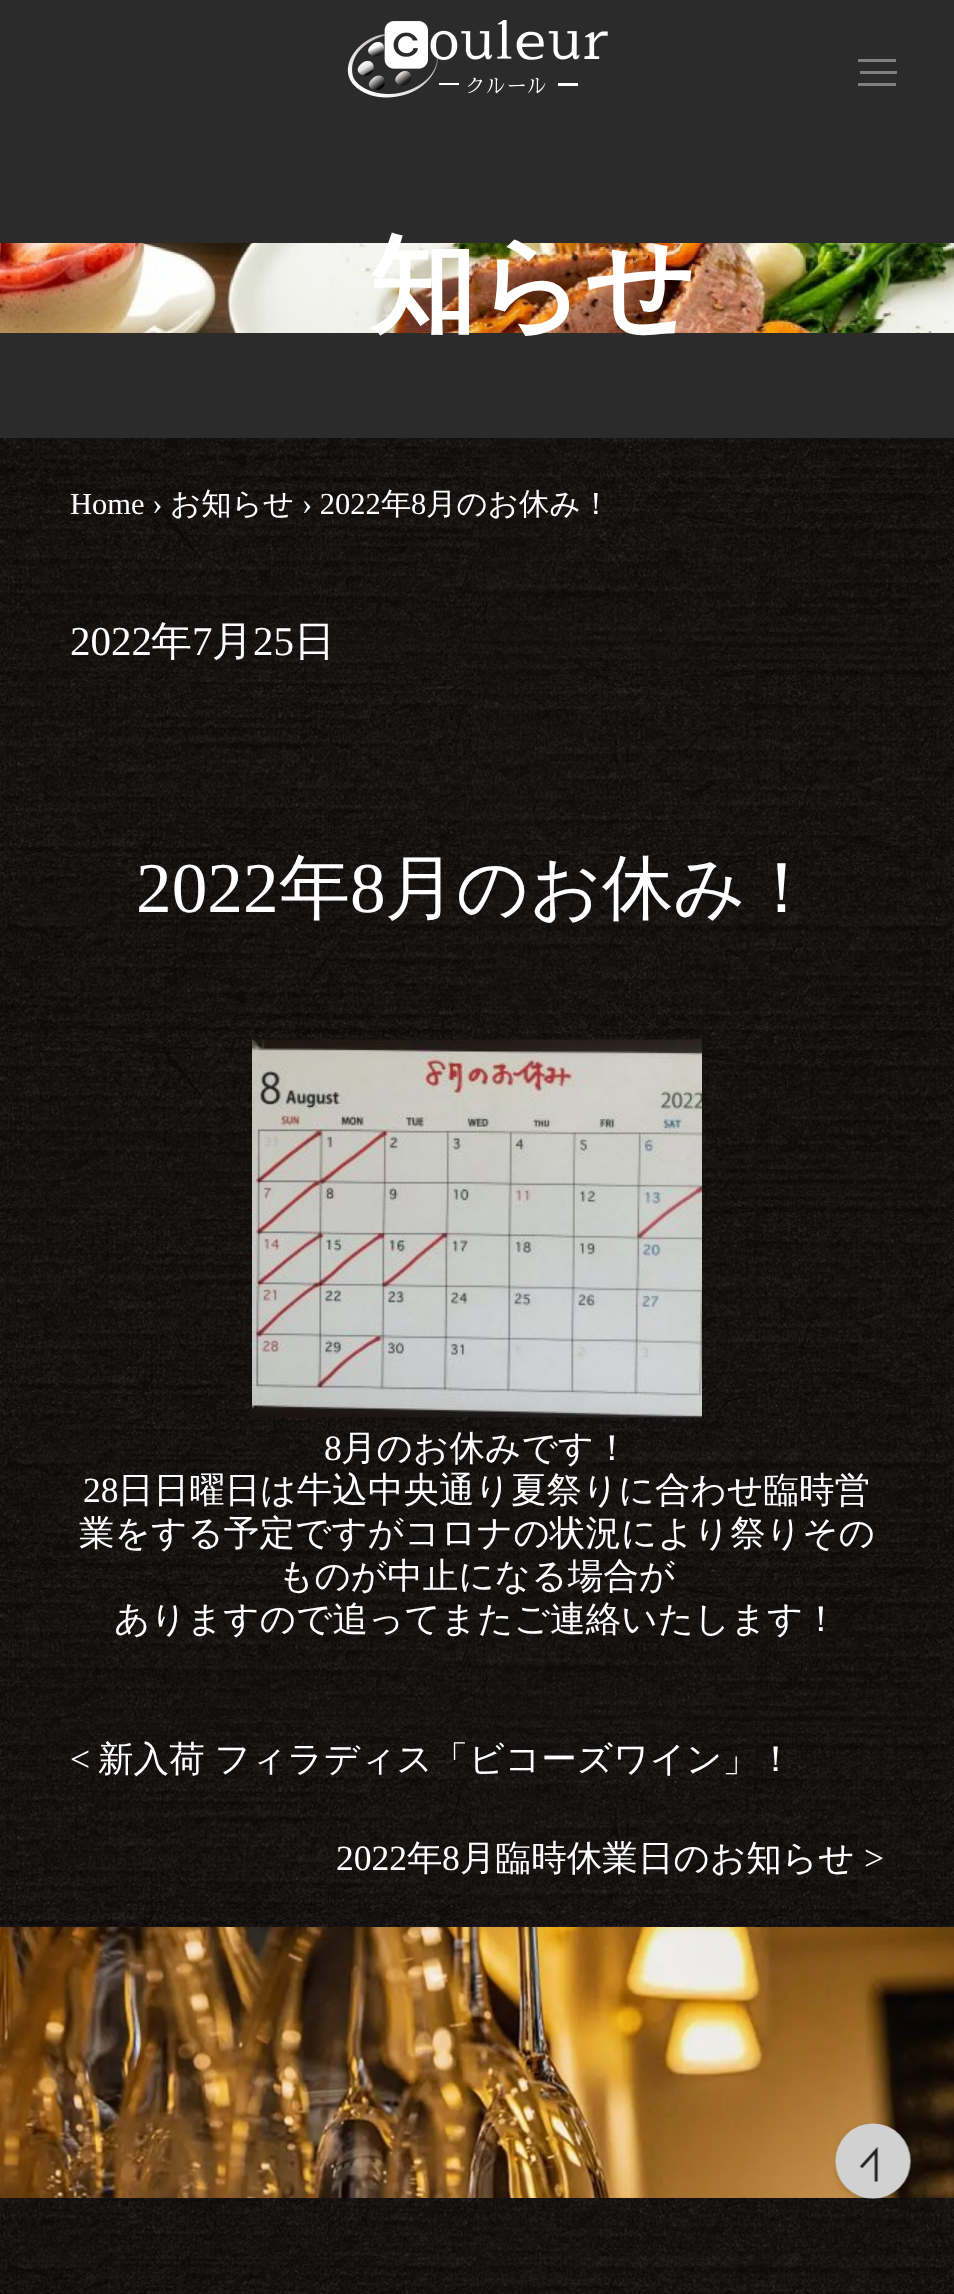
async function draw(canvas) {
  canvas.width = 954
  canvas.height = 2294
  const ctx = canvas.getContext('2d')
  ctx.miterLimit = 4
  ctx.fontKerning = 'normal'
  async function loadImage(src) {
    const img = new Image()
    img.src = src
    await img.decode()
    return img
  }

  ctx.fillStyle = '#2b2b2b'
  ctx.fillRect(0, 0, 954, 2294)
  ctx.drawImage(await loadImage('image0.png'), 347, 20, 261, 78)
  ctx.fillStyle = '#808080'
  ctx.fillRect(860, 71, 37, 3)
  ctx.fillRect(858, 59, 38, 3)
  ctx.fillRect(858, 83, 38, 3)
  ctx.drawImage(await loadImage('image1.png'), 0, 243, 954, 90)
  ctx.font = 'bold 107px WenQuanYi Zen Hei'
  ctx.fillStyle = '#fff'
  ctx.fillText('知らせ', 369, 322)
  ctx.drawImage(await loadImage('image2.png'), 0, 438, 954, 1489)
  ctx.font = '30.5px Liberation Serif'
  ctx.fillText('Home ›', 70, 514)
  ctx.font = '500 30.5px WenQuanYi Zen Hei'
  ctx.fillText('お知らせ', 170, 514)
  ctx.font = '30.5px Liberation Serif'
  ctx.fillText('› 2022', 302, 514)
  ctx.font = '500 30.5px WenQuanYi Zen Hei'
  ctx.fillText('年', 381, 514)
  ctx.font = '30.5px Liberation Serif'
  ctx.fillText('8', 411, 514)
  ctx.font = '500 30.5px WenQuanYi Zen Hei'
  ctx.fillText('月のお休み！', 426, 514)
  ctx.font = '41px Liberation Serif'
  ctx.fillText('2022', 70, 655)
  ctx.font = '500 41px WenQuanYi Zen Hei'
  ctx.fillText('年', 151, 655)
  ctx.font = '41px Liberation Serif'
  ctx.fillText('7', 192, 655)
  ctx.font = '500 41px WenQuanYi Zen Hei'
  ctx.fillText('月', 212, 655)
  ctx.font = '41px Liberation Serif'
  ctx.fillText('25', 253, 655)
  ctx.font = '500 41px WenQuanYi Zen Hei'
  ctx.fillText('日', 294, 655)
  ctx.font = '71.25px Liberation Serif'
  ctx.fillText('2022', 136, 912)
  ctx.font = '500 71.25px WenQuanYi Zen Hei'
  ctx.fillText('年', 279, 912)
  ctx.font = '71.25px Liberation Serif'
  ctx.fillText('8', 350, 912)
  ctx.font = '500 71.25px WenQuanYi Zen Hei'
  ctx.fillText('月のお休み！', 385, 912)
  ctx.drawImage(await loadImage('image3.png'), 252, 1039, 450, 379)
  ctx.font = '35.6px Liberation Serif'
  ctx.fillText('8', 324, 1460)
  ctx.font = '500 35.6px WenQuanYi Zen Hei'
  ctx.fillText('月のお休みです！', 341, 1460)
  ctx.font = '35.6px Liberation Serif'
  ctx.fillText('28', 83, 1502)
  ctx.font = '500 35.6px WenQuanYi Zen Hei'
  ctx.fillText('日日曜日は牛込中央通り夏祭りに合わせ臨時営', 118, 1502)
  ctx.fillText('業をする予定ですがコロナの状況により祭りその', 79, 1545)
  ctx.fillText('ものが中止になる場合が', 278, 1588)
  ctx.fillText('ありますので追ってまたご連絡いたします！', 114, 1631)
  ctx.font = '35.6px Liberation Serif'
  ctx.fillText('<', 70, 1771)
  ctx.wordSpacing = '-1px'
  ctx.font = '500 35.6px WenQuanYi Zen Hei'
  ctx.fillText('新入荷 フィラディス「ビコーズワイン」！', 98, 1771)
  ctx.wordSpacing = '0px'
  ctx.font = '35.6px Liberation Serif'
  ctx.fillText('2022', 336, 1870)
  ctx.font = '500 35.6px WenQuanYi Zen Hei'
  ctx.fillText('年', 407, 1870)
  ctx.font = '35.6px Liberation Serif'
  ctx.fillText('8', 442, 1870)
  ctx.font = '500 35.6px WenQuanYi Zen Hei'
  ctx.fillText('月臨時休業日のお知らせ', 460, 1870)
  ctx.font = '35.6px Liberation Serif'
  ctx.fillText('>', 864, 1870)
  ctx.drawImage(await loadImage('image4.png'), 0, 1927, 954, 271)
  ctx.drawImage(await loadImage('image6.png'), 0, 2198, 954, 96)
  ctx.drawImage(await loadImage('image5.png'), 834, 2123, 78, 76)
}

draw(document.querySelector('canvas'))
